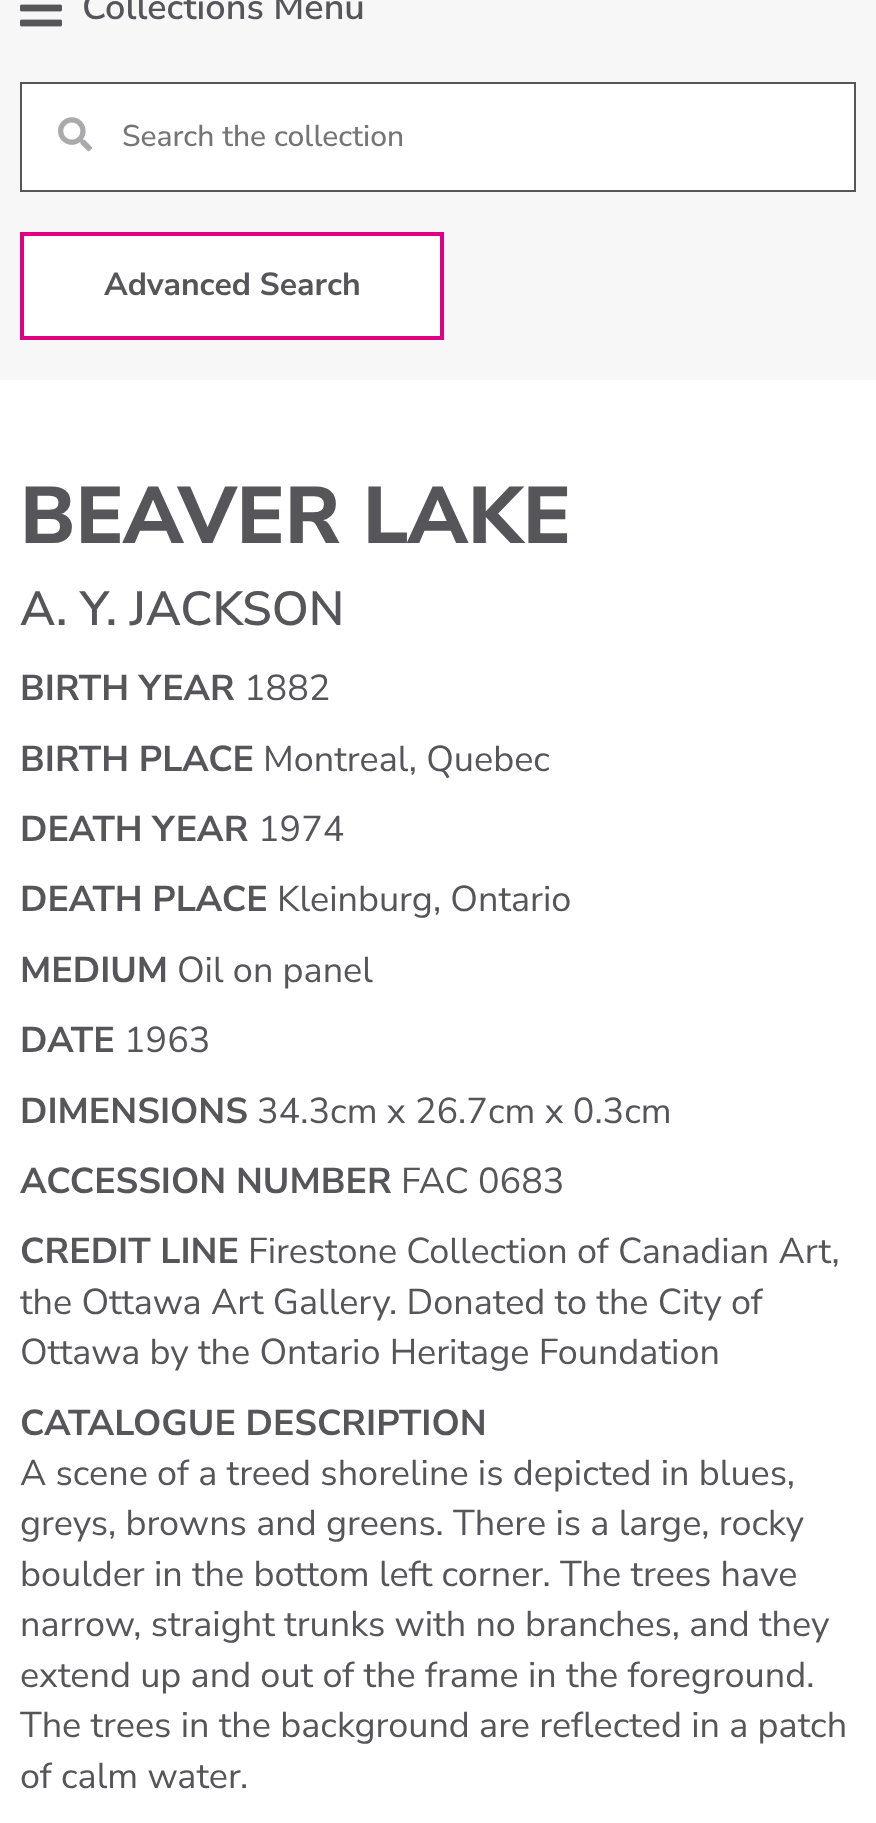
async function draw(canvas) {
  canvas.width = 876
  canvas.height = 1823
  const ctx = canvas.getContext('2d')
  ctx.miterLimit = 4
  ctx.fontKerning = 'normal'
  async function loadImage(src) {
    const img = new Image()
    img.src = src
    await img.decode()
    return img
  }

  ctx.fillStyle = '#fff'
  ctx.fillRect(0, 0, 876, 1823)
  ctx.fillStyle = '#f7f7f7'
  ctx.fillRect(0, 0, 876, 380)
  ctx.drawImage(await loadImage('image0.png'), 20, 4, 42, 23)
  ctx.font = '600 36px Nunito Sans'
  ctx.fillStyle = '#56565a'
  ctx.fillText('Collections Menu', 82, 19)
  ctx.fillStyle = '#fff'
  ctx.beginPath()
  ctx.rect(21, 83, 834, 108)
  ctx.fill()
  ctx.strokeStyle = '#56565a'
  ctx.lineWidth = 2
  ctx.stroke()
  ctx.drawImage(await loadImage('image1.png'), 58, 117, 34, 35)
  ctx.font = '500 30px Nunito Sans'
  ctx.fillStyle = '#757575'
  ctx.fillText('Search the collection', 122, 146)
  ctx.fillStyle = '#fff'
  ctx.beginPath()
  ctx.rect(22, 234, 420, 104)
  ctx.fill()
  ctx.strokeStyle = '#e00084'
  ctx.lineWidth = 4
  ctx.stroke()
  ctx.font = 'bold 32px Nunito Sans'
  ctx.fillStyle = '#56565a'
  ctx.fillText('Advanced Search', 104, 295)
  ctx.font = '800 80px Nunito Sans'
  ctx.fillText('BEAVER LAKE', 20, 543)
  ctx.font = '600 47.75px Nunito Sans'
  ctx.fillText('A. Y. JACKSON', 20, 625)
  ctx.font = 'bold 36px Nunito Sans'
  ctx.fillText('BIRTH YEAR', 20, 700)
  ctx.font = '36px Nunito Sans'
  ctx.fillText('1882', 244, 700)
  ctx.font = 'bold 36px Nunito Sans'
  ctx.fillText('BIRTH PLACE', 20, 771)
  ctx.font = '36px Nunito Sans'
  ctx.fillText('Montreal, Quebec', 263, 771)
  ctx.font = 'bold 36px Nunito Sans'
  ctx.fillText('DEATH YEAR', 20, 841)
  ctx.font = '36px Nunito Sans'
  ctx.fillText('1974', 258, 841)
  ctx.font = 'bold 36px Nunito Sans'
  ctx.fillText('DEATH PLACE', 20, 911)
  ctx.font = '36px Nunito Sans'
  ctx.fillText('Kleinburg, Ontario', 277, 911)
  ctx.font = 'bold 36px Nunito Sans'
  ctx.fillText('MEDIUM', 20, 982)
  ctx.font = '36px Nunito Sans'
  ctx.fillText('Oil on panel', 177, 982)
  ctx.font = 'bold 36px Nunito Sans'
  ctx.fillText('DATE', 20, 1052)
  ctx.font = '36px Nunito Sans'
  ctx.fillText('1963', 124, 1052)
  ctx.font = 'bold 36px Nunito Sans'
  ctx.fillText('DIMENSIONS', 20, 1123)
  ctx.font = '36px Nunito Sans'
  ctx.fillText('34.3cm x 26.7cm x 0.3cm', 257, 1123)
  ctx.font = 'bold 36px Nunito Sans'
  ctx.fillText('ACCESSION NUMBER', 20, 1193)
  ctx.font = '36px Nunito Sans'
  ctx.fillText('FAC 0683', 401, 1193)
  ctx.font = 'bold 36px Nunito Sans'
  ctx.fillText('CREDIT LINE', 20, 1263)
  ctx.font = '36px Nunito Sans'
  ctx.fillText('Firestone Collection of Canadian Art,', 248, 1263)
  ctx.fillText('the Ottawa Art Gallery. Donated to the City of', 20, 1314)
  ctx.fillText('Ottawa by the Ontario Heritage Foundation', 20, 1364)
  ctx.font = 'bold 36px Nunito Sans'
  ctx.fillText('CATALOGUE DESCRIPTION', 20, 1435)
  ctx.font = '36px Nunito Sans'
  ctx.fillText('A scene of a treed shoreline is depicted in blues,', 20, 1485)
  ctx.fillText('greys, browns and greens. There is a large, rocky', 20, 1535)
  ctx.fillText('boulder in the bottom left corner. The trees have', 20, 1586)
  ctx.fillText('narrow, straight trunks with no branches, and they', 20, 1636)
  ctx.fillText('extend up and out of the frame in the foreground.', 20, 1687)
  ctx.fillText('The trees in the background are reflected in a patch', 20, 1737)
  ctx.fillText('of calm water.', 20, 1788)
}

draw(document.querySelector('canvas'))
